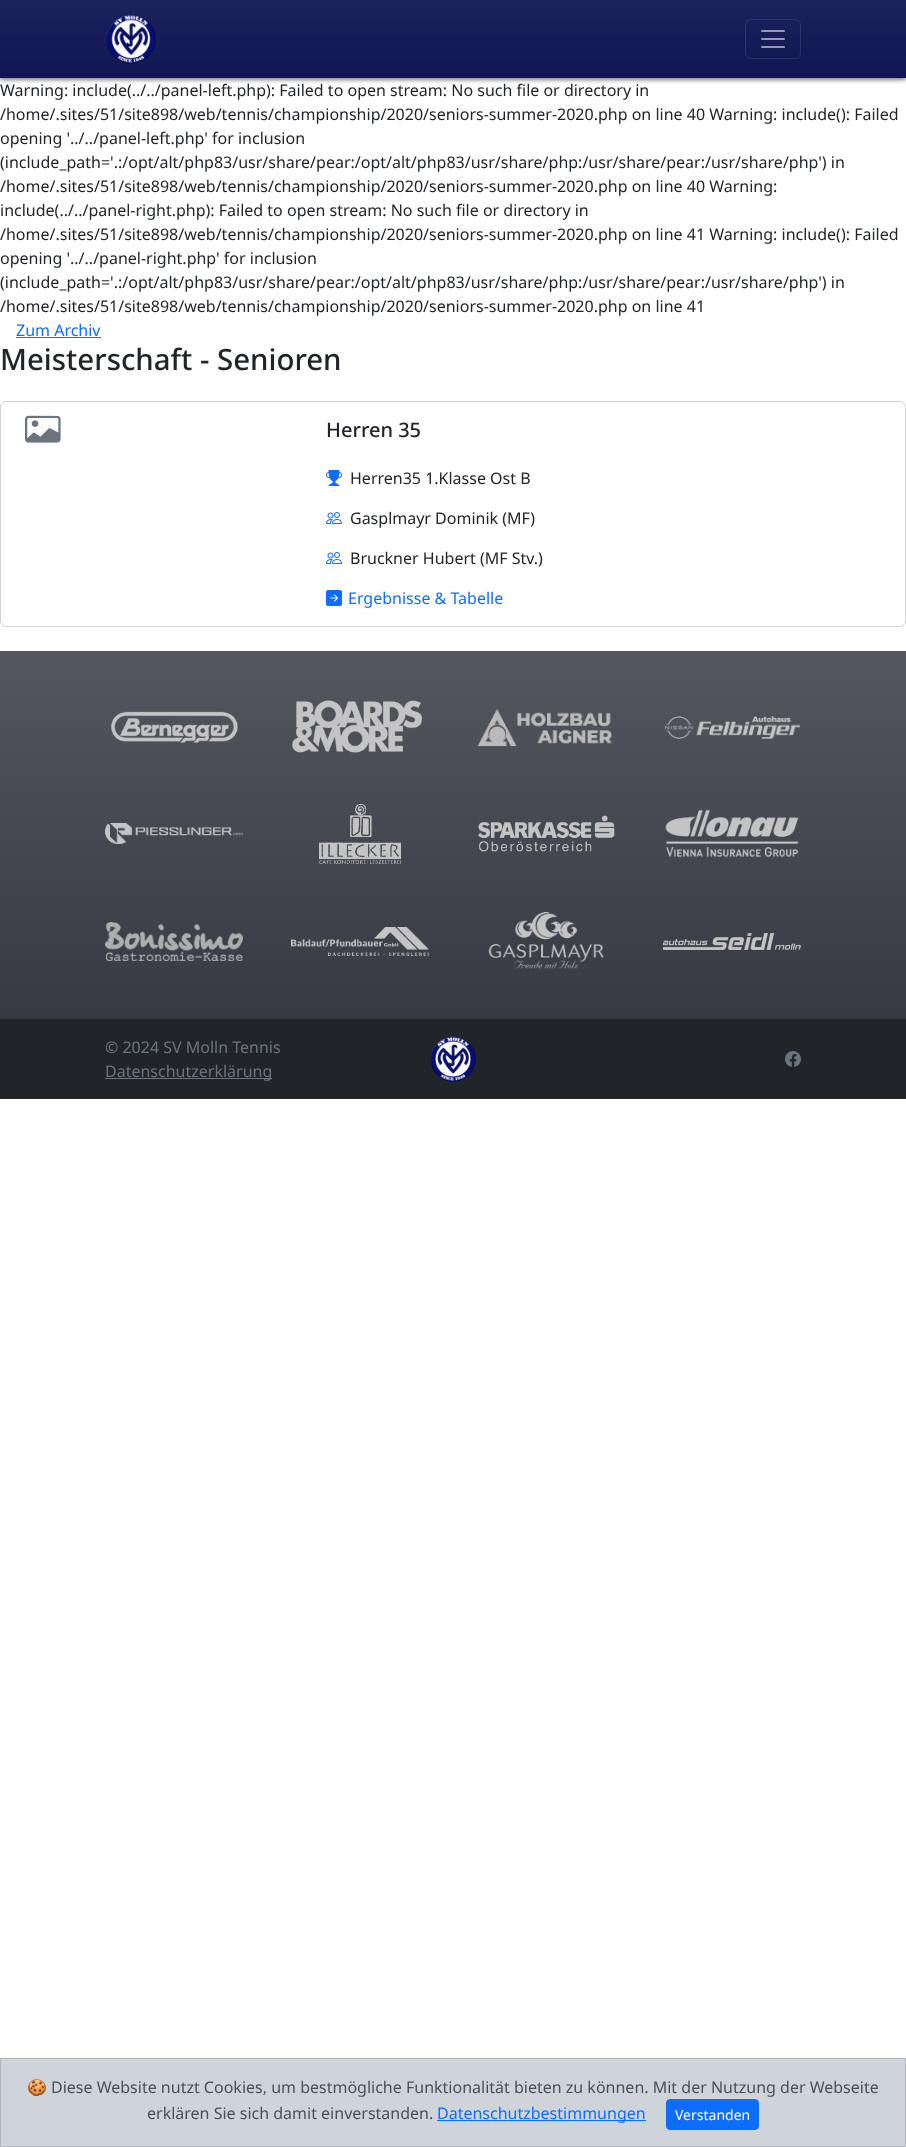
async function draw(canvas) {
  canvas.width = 906
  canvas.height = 2147
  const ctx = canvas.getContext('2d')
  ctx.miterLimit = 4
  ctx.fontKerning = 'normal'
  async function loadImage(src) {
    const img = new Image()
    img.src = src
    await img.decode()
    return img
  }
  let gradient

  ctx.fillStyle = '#fff'
  ctx.fillRect(0, 0, 906, 2147)
  ctx.fillStyle = '#00000080'
  ctx.filter = 'blur(2px)'
  ctx.beginPath()
  ctx.rect(0, 2, 906, 78)
  ctx.fill()
  ctx.filter = 'none'
  gradient = ctx.createLinearGradient(453, 0, 453, 78)
  gradient.addColorStop(0, '#1b225c')
  gradient.addColorStop(1, '#0f1653')
  ctx.fillStyle = gradient
  ctx.fillRect(0, 0, 906, 78)
  ctx.drawImage(await loadImage('image0.png'), 106, 14, 50, 50)
  ctx.beginPath()
  ctx.roundRect(745.5, 19.5, 55, 39, 5.5)
  ctx.strokeStyle = '#ffffff1a'
  ctx.stroke()
  ctx.drawImage(await loadImage('image1.png'), 761, 30, 24, 18)
  ctx.font = '16px Noto Sans'
  ctx.fillStyle = '#212529'
  ctx.fillText('Warning: include(../../panel-left.php): Failed to open stream: No such file or directory in', 0, 96)
  ctx.fillText('/home/.sites/51/site898/web/tennis/championship/2020/seniors-summer-2020.php on line 40 Warning: include(): Failed', 0, 120)
  ctx.fillText('opening \'../../panel-left.php\' for inclusion', 0, 144)
  ctx.fillText('(include_path=\'.:/opt/alt/php83/usr/share/pear:/opt/alt/php83/usr/share/php:/usr/share/pear:/usr/share/php\') in', 0, 168)
  ctx.fillText('/home/.sites/51/site898/web/tennis/championship/2020/seniors-summer-2020.php on line 40 Warning:', 0, 192)
  ctx.fillText('include(../../panel-right.php): Failed to open stream: No such file or directory in', 0, 216)
  ctx.fillText('/home/.sites/51/site898/web/tennis/championship/2020/seniors-summer-2020.php on line 41 Warning: include(): Failed', 0, 240)
  ctx.fillText('opening \'../../panel-right.php\' for inclusion', 0, 264)
  ctx.fillText('(include_path=\'.:/opt/alt/php83/usr/share/pear:/opt/alt/php83/usr/share/php:/usr/share/pear:/usr/share/php\') in', 0, 288)
  ctx.fillText('/home/.sites/51/site898/web/tennis/championship/2020/seniors-summer-2020.php on line 41', 0, 312)
  ctx.fillStyle = '#0d6efd'
  ctx.fillText('Zum Archiv', 16, 336)
  ctx.fillRect(16, 337, 85, 1)
  ctx.font = '500 29.4px Noto Sans'
  ctx.fillStyle = '#212529'
  ctx.fillText('Meisterschaft - Senioren', 0, 370)
  ctx.beginPath()
  ctx.roundRect(0.5, 401.5, 905, 225, 5.5)
  ctx.strokeStyle = '#d2d2d2'
  ctx.stroke()
  ctx.drawImage(await loadImage('image2.png'), 25, 415, 36, 28)
  ctx.font = '500 20px Noto Sans'
  ctx.fillText('Herren 35', 326, 437)
  ctx.drawImage(await loadImage('image3.png'), 326, 470, 16, 16)
  ctx.font = '16px Noto Sans'
  ctx.fillText('Herren35 1.Klasse Ost B', 350, 484)
  ctx.drawImage(await loadImage('image4.png'), 326, 512, 16, 12)
  ctx.fillText('Gasplmayr Dominik (MF)', 350, 524)
  ctx.drawImage(await loadImage('image4.png'), 326, 552, 16, 12)
  ctx.fillText('Bruckner Hubert (MF Stv.)', 350, 564)
  ctx.drawImage(await loadImage('image5.png'), 326, 590, 16, 16)
  ctx.fillStyle = '#0d6efd'
  ctx.fillText('Ergebnisse & Tabelle', 348, 604)
  gradient = ctx.createLinearGradient(453, 651, 453, 1019)
  gradient.addColorStop(0, '#55575f')
  gradient.addColorStop(1, '#373943')
  ctx.fillStyle = gradient
  ctx.fillRect(0, 651, 906, 368)
  ctx.drawImage(await loadImage('image6.png'), 111, 711, 127, 32)
  ctx.drawImage(await loadImage('image7.png'), 292, 700, 130, 53)
  ctx.drawImage(await loadImage('image8.png'), 478, 709, 134, 38)
  ctx.drawImage(await loadImage('image9.png'), 665, 716, 136, 23)
  ctx.drawImage(await loadImage('image10.png'), 105, 823, 138, 21)
  ctx.drawImage(await loadImage('image11.png'), 319, 804, 82, 60)
  ctx.drawImage(await loadImage('image12.png'), 477, 815, 138, 37)
  ctx.drawImage(await loadImage('image13.png'), 665, 809, 134, 49)
  ctx.drawImage(await loadImage('image14.png'), 105, 922, 138, 39)
  ctx.drawImage(await loadImage('image15.png'), 291, 927, 138, 29)
  ctx.drawImage(await loadImage('image16.png'), 488, 912, 117, 57)
  ctx.drawImage(await loadImage('image17.png'), 663, 933, 138, 17)
  ctx.fillStyle = '#212529'
  ctx.fillRect(0, 1019, 906, 80)
  ctx.fillStyle = '#6c757d'
  ctx.fillText('© 2024 SV Molln Tennis', 105, 1053)
  ctx.fillRect(105, 1078, 167, 1)
  ctx.fillText('Datenschutzerklärung', 105, 1077)
  ctx.drawImage(await loadImage('image18.png'), 430, 1036, 46, 46)
  ctx.drawImage(await loadImage('image19.png'), 785, 1051, 16, 16)
  ctx.fillStyle = '#ced4da'
  ctx.beginPath()
  ctx.rect(0.5, 2058.5, 905, 88)
  ctx.fill()
  ctx.strokeStyle = '#adb5bd'
  ctx.stroke()
  ctx.font = '16px Noto Color Emoji'
  ctx.fillStyle = '#495057'
  ctx.fillText('🍪', 27, 2093)
  ctx.font = '16px Noto Sans'
  ctx.fillText('Diese Website nutzt Cookies, um bestmögliche Funktionalität bieten zu können. Mit der Nutzung der Webseite', 51, 2093)
  ctx.fillText('erklären Sie sich damit einverstanden.', 147, 2119)
  ctx.fillStyle = '#0d6efd'
  ctx.fillRect(437, 2120, 209, 1)
  ctx.fillText('Datenschutzbestimmungen', 437, 2119)
  ctx.beginPath()
  ctx.roundRect(666.5, 2099.5, 92, 30, 3.5)
  ctx.fill()
  ctx.strokeStyle = '#0d6efd'
  ctx.stroke()
  ctx.font = '14px Noto Sans'
  ctx.fillStyle = '#fff'
  ctx.fillText('Verstanden', 675, 2120)
}

draw(document.querySelector('canvas'))
